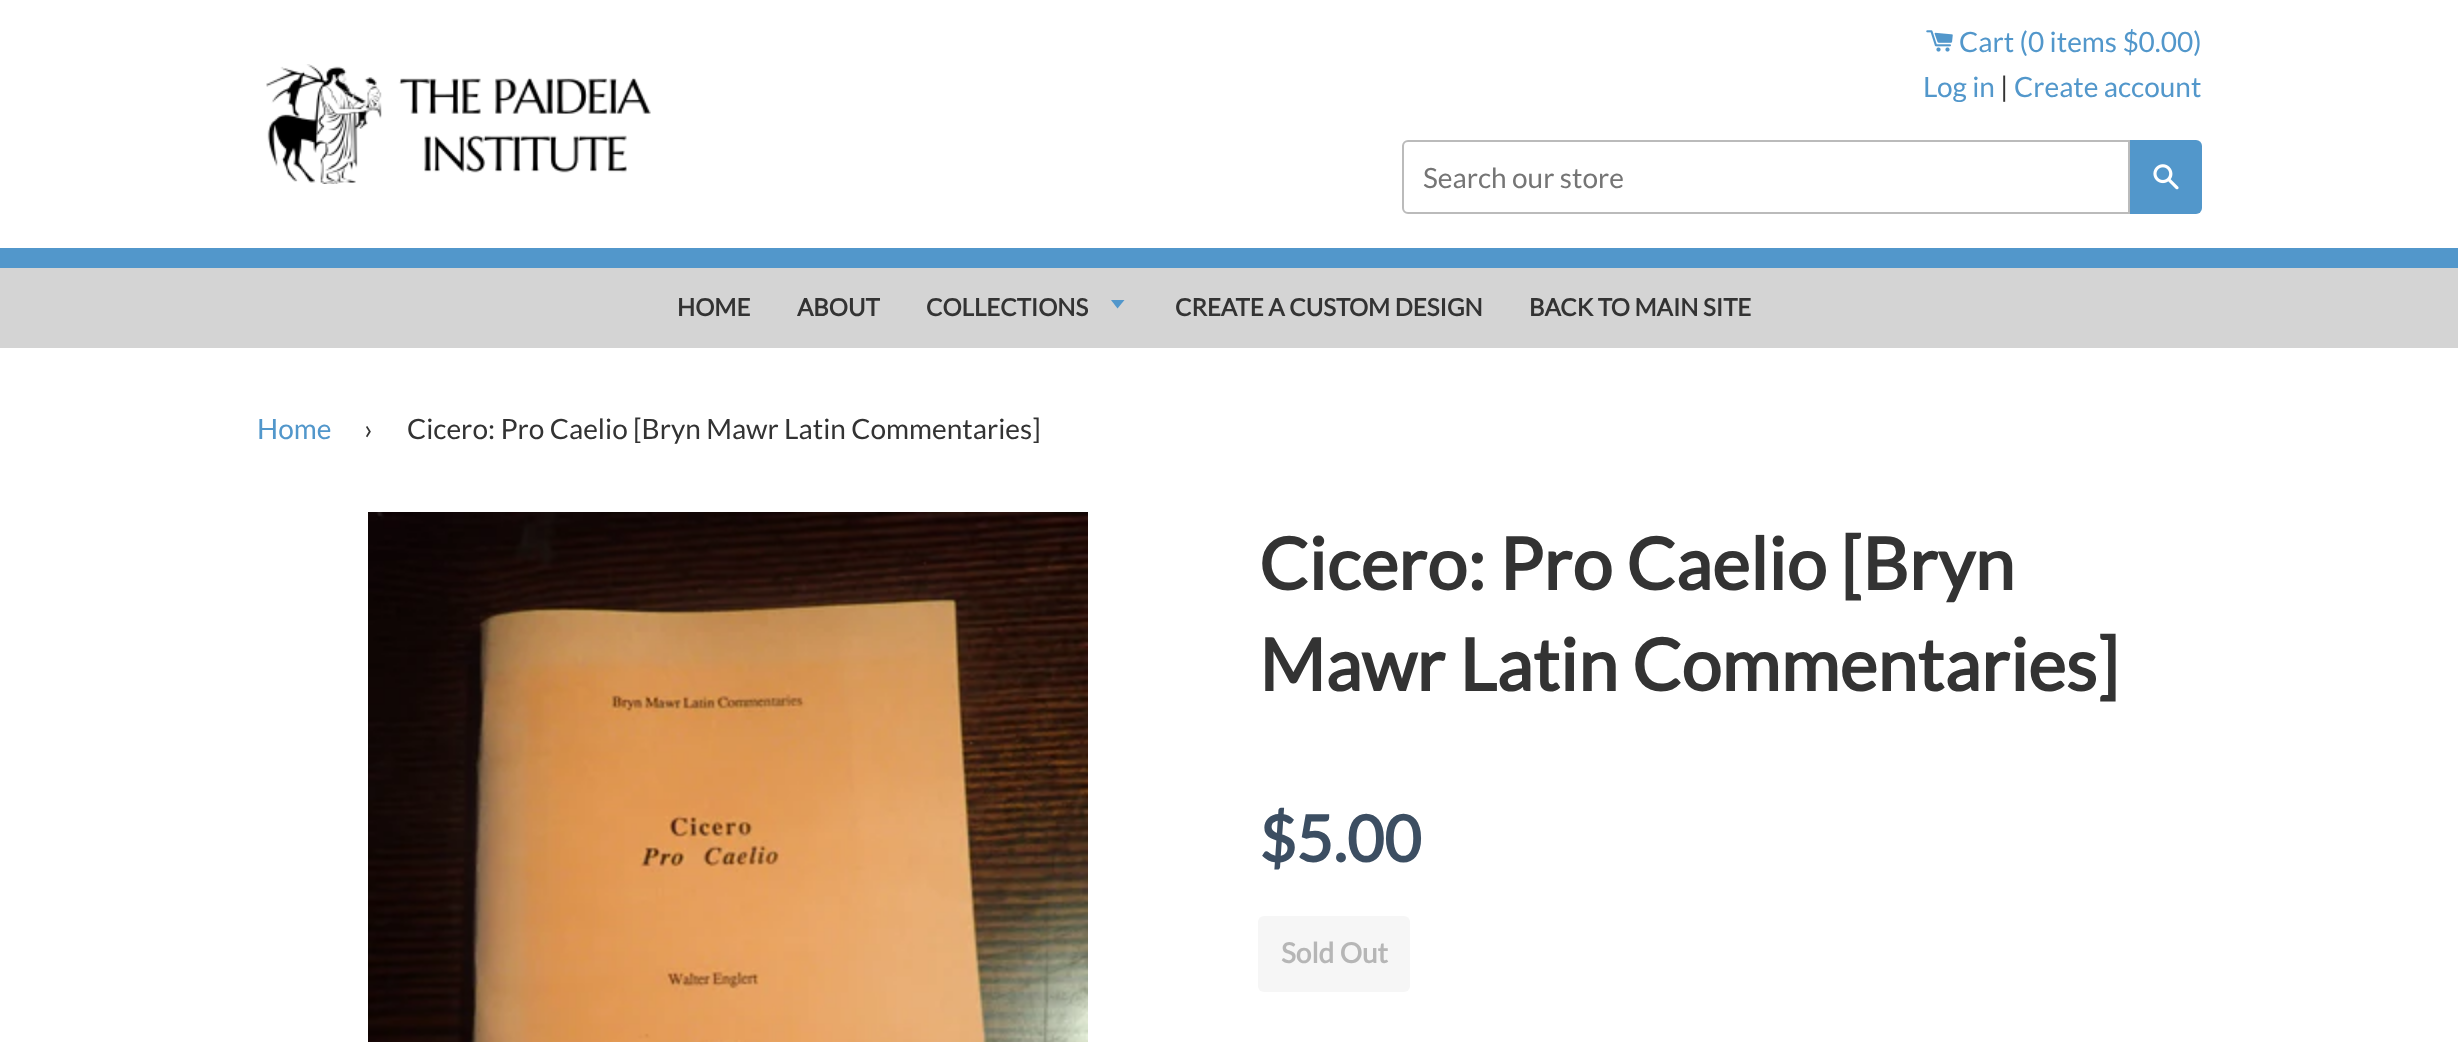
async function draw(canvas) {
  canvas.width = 2458
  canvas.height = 1042
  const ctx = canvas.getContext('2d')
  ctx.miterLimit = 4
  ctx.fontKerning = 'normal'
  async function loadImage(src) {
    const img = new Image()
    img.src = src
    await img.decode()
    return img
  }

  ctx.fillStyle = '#fff'
  ctx.fillRect(0, 0, 2458, 1042)
  ctx.drawImage(await loadImage('image0.png'), 266, 64, 385, 120)
  ctx.drawImage(await loadImage('image1.png'), 1926, 30, 27, 22)
  ctx.font = '28px Lato'
  ctx.fillStyle = '#5297cb'
  ctx.fillText('Cart (0 items $0.00)', 1959, 52)
  ctx.fillText('Log in', 1923, 97)
  ctx.fillStyle = '#333'
  ctx.fillText('|', 2000, 97)
  ctx.fillStyle = '#5297cb'
  ctx.fillText('Create account', 2014, 97)
  ctx.beginPath()
  ctx.roundRect(1403, 141, 726, 72, [5, 0, 0, 5])
  ctx.strokeStyle = '#bbb'
  ctx.lineWidth = 2
  ctx.stroke()
  ctx.fillStyle = '#757575'
  ctx.fillText('Search our store', 1423, 188)
  ctx.fillStyle = '#5297cb'
  ctx.beginPath()
  ctx.roundRect(2130, 140, 72, 74, [0, 6, 6, 0])
  ctx.fill()
  ctx.drawImage(await loadImage('image2.png'), 2153, 164, 26, 26)
  ctx.fillRect(0, 248, 2458, 20)
  ctx.fillStyle = '#d4d4d4'
  ctx.fillRect(0, 268, 2458, 80)
  ctx.font = 'bold 24px Lato'
  ctx.fillStyle = '#333'
  ctx.fillText('HOME', 677, 316)
  ctx.fillText('ABOUT', 797, 316)
  ctx.fillText('COLLECTIONS', 926, 316)
  ctx.fillStyle = '#5297cb'
  ctx.beginPath()
  ctx.moveTo(1111, 300)
  ctx.lineTo(1117.5, 308.5)
  ctx.lineTo(1124.5, 300)
  ctx.closePath()
  ctx.fill()
  ctx.fillStyle = '#333'
  ctx.fillText('CREATE A CUSTOM DESIGN', 1175, 316)
  ctx.fillText('BACK TO MAIN SITE', 1529, 316)
  ctx.font = '28px Lato'
  ctx.fillStyle = '#5297cb'
  ctx.fillText('Home', 257, 439)
  ctx.fillStyle = '#333'
  ctx.fillText('›', 364, 439)
  ctx.fillText('Cicero: Pro Caelio [Bryn Mawr Latin Commentaries]', 407, 439)
  ctx.drawImage(await loadImage('image3.png'), 368, 512, 720, 530)
  ctx.font = 'bold 72px Lato'
  ctx.fillText('Cicero: Pro Caelio [Bryn', 1259, 590)
  ctx.fillText('Mawr Latin Commentaries]', 1259, 691)
  ctx.font = 'bold 64px Lato'
  ctx.fillStyle = '#3c4e62'
  ctx.fillText('$5.00', 1259, 862)
  ctx.fillStyle = '#f6f6f6'
  ctx.beginPath()
  ctx.roundRect(1258, 916, 152, 76, 6)
  ctx.fill()
  ctx.font = 'bold 28px Lato'
  ctx.fillStyle = '#b6b6b6'
  ctx.fillText('Sold Out', 1281, 963)
}

draw(document.querySelector('canvas'))
